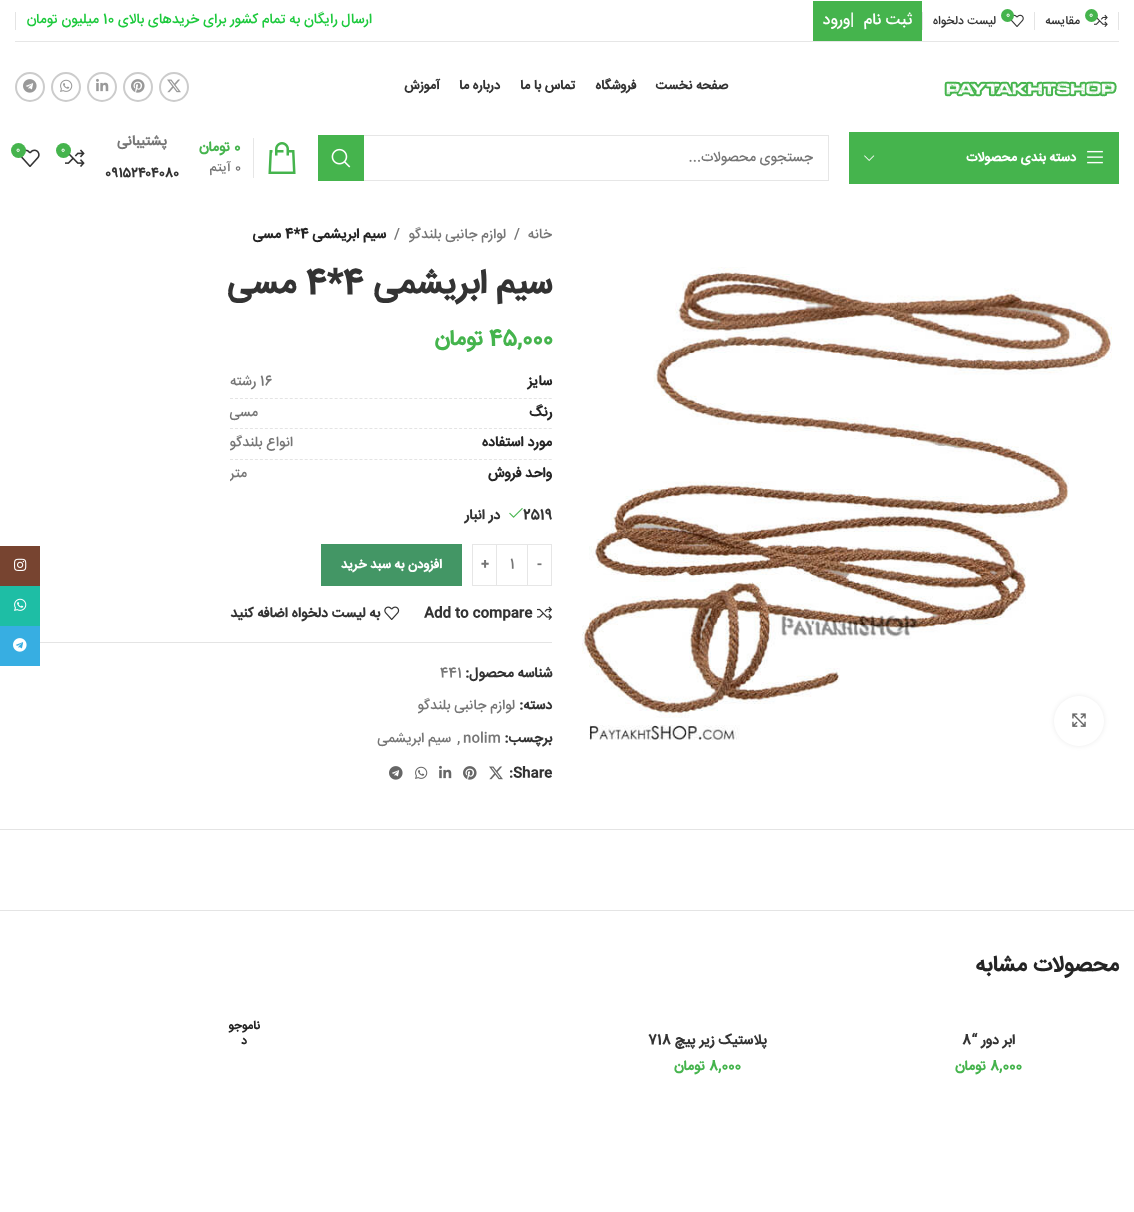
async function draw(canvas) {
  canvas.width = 1134
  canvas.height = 1212
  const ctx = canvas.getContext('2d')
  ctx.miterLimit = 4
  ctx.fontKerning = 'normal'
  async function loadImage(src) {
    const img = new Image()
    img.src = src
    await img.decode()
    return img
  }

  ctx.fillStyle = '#fff'
  ctx.fillRect(0, 0, 1134, 1212)
  ctx.fillStyle = '#e6e6e6'
  ctx.fillRect(15, 41, 1104, 1)
  ctx.fillStyle = '#e4e4e4'
  ctx.fillRect(1118, 12, 1, 18)
  ctx.drawImage(await loadImage('image0.png'), 1094, 14, 14, 13)
  ctx.fillStyle = '#45b44d'
  ctx.beginPath()
  ctx.arc(1091.5, 15.5, 6.5, 0, 2 * Math.PI)
  ctx.fill()
  ctx.font = '500 9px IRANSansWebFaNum'
  ctx.fillStyle = '#fff'
  ctx.fillText('0', 1089, 17)
  ctx.direction = 'rtl'
  ctx.font = '500 12px IRANSansWebFaNum'
  ctx.fillStyle = '#333'
  ctx.fillText('مقایسه', 1080, 24)
  ctx.fillStyle = '#e4e4e4'
  ctx.fillRect(1034, 12, 1, 18)
  ctx.drawImage(await loadImage('image1.png'), 1011, 14, 13, 13)
  ctx.fillStyle = '#45b44d'
  ctx.beginPath()
  ctx.arc(1007.5, 15.5, 6.5, 0, 2 * Math.PI)
  ctx.fill()
  ctx.direction = 'ltr'
  ctx.font = '500 9px IRANSansWebFaNum'
  ctx.fillStyle = '#fff'
  ctx.fillText('0', 1006, 17)
  ctx.direction = 'rtl'
  ctx.font = '500 12px IRANSansWebFaNum'
  ctx.fillStyle = '#333'
  ctx.fillText('لیست دلخواه', 996, 24)
  ctx.fillStyle = '#e4e4e4'
  ctx.fillRect(922, 12, 1, 18)
  ctx.fillStyle = '#45b44d'
  ctx.fillRect(813, 1, 109, 40)
  ctx.font = '500 16px IRANSansWebFaNum'
  ctx.fillStyle = '#fff'
  ctx.fillText('ثبت نام', 912, 24)
  ctx.direction = 'ltr'
  ctx.fillText('|', 850, 24)
  ctx.direction = 'rtl'
  ctx.fillText('ورود', 850, 24)
  ctx.font = '500 14px IRANSansWebFaNum'
  ctx.fillStyle = '#1cc93c'
  ctx.fillText('ارسال رایگان به تمام کشور برای خریدهای بالای', 372, 23)
  ctx.direction = 'ltr'
  ctx.fillText('10', 103, 23)
  ctx.direction = 'rtl'
  ctx.fillText('میلیون تومان', 99, 23)
  ctx.fillStyle = '#e4e4e4'
  ctx.fillRect(15, 12, 1, 18)
  ctx.drawImage(await loadImage('image2.png'), 944, 81, 173, 16)
  ctx.font = 'bold 13px IRANSansWebFaNum'
  ctx.fillStyle = '#333'
  ctx.fillText('صفحه نخست', 728, 89)
  ctx.fillText('فروشگاه', 636, 89)
  ctx.fillText('تماس با ما', 575, 89)
  ctx.fillText('درباره ما', 500, 89)
  ctx.fillText('آموزش', 440, 89)
  ctx.beginPath()
  ctx.arc(174, 87, 14, 0, 2 * Math.PI)
  ctx.strokeStyle = '#ccc'
  ctx.lineWidth = 2
  ctx.stroke()
  ctx.drawImage(await loadImage('image3.png'), 167, 79, 14, 14)
  ctx.beginPath()
  ctx.arc(138, 87, 14, 0, 2 * Math.PI)
  ctx.stroke()
  ctx.drawImage(await loadImage('image4.png'), 131, 79, 14, 14)
  ctx.beginPath()
  ctx.arc(102, 87, 14, 0, 2 * Math.PI)
  ctx.stroke()
  ctx.drawImage(await loadImage('image5.png'), 96, 78, 13, 14)
  ctx.beginPath()
  ctx.arc(66, 87, 14, 0, 2 * Math.PI)
  ctx.stroke()
  ctx.drawImage(await loadImage('image6.png'), 60, 79, 13, 13)
  ctx.beginPath()
  ctx.arc(30, 87, 14, 0, 2 * Math.PI)
  ctx.stroke()
  ctx.drawImage(await loadImage('image7.png'), 23, 79, 14, 14)
  ctx.fillStyle = '#45b44d'
  ctx.fillRect(849, 132, 270, 52)
  ctx.drawImage(await loadImage('image8.png'), 1087, 150, 16, 14)
  ctx.fillStyle = '#fff'
  ctx.fillText('دسته بندی محصولات', 1076, 161)
  ctx.drawImage(await loadImage('image9.png'), 864, 155, 11, 6)
  ctx.strokeStyle = '#e6e6e6'
  ctx.lineWidth = 1
  ctx.strokeRect(318.5, 135.5, 510, 45)
  ctx.font = '500 14px IRANSansWebFaNum'
  ctx.fillStyle = '#767676'
  ctx.fillText('جستجوی محصولات...', 813, 161)
  ctx.fillStyle = '#45b44d'
  ctx.fillRect(318, 135, 46, 46)
  ctx.drawImage(await loadImage('image10.png'), 331, 148, 20, 20)
  ctx.drawImage(await loadImage('image11.png'), 268, 142, 28, 32)
  ctx.fillStyle = '#e6e6e6'
  ctx.fillRect(253, 138, 1, 40)
  ctx.direction = 'ltr'
  ctx.font = 'bold 14px IRANSansWebFaNum'
  ctx.fillStyle = '#45b44d'
  ctx.fillText('0', 234, 151)
  ctx.direction = 'rtl'
  ctx.fillText('تومان', 230, 151)
  ctx.direction = 'ltr'
  ctx.font = '500 13px IRANSansWebFaNum'
  ctx.fillStyle = '#767676'
  ctx.fillText('0', 235, 171)
  ctx.direction = 'rtl'
  ctx.fillText('آیتم', 231, 171)
  ctx.font = 'bold 14px IRANSansWebFaNum'
  ctx.fillText('پشتیبانی', 167, 145)
  ctx.direction = 'ltr'
  ctx.fillStyle = '#333'
  ctx.fillText('۰۹۱۵۲۴۰۴۰۸۰', 105, 177)
  ctx.drawImage(await loadImage('image12.png'), 65, 149, 20, 18)
  ctx.fillStyle = '#45b44d'
  ctx.beginPath()
  ctx.arc(63.5, 150.5, 7.5, 0, 2 * Math.PI)
  ctx.fill()
  ctx.font = '500 9px IRANSansWebFaNum'
  ctx.fillStyle = '#fff'
  ctx.fillText('0', 61, 152)
  ctx.drawImage(await loadImage('image13.png'), 20, 149, 20, 18)
  ctx.fillStyle = '#45b44d'
  ctx.beginPath()
  ctx.arc(18.5, 150.5, 7.5, 0, 2 * Math.PI)
  ctx.fill()
  ctx.fillStyle = '#fff'
  ctx.fillText('0', 16, 152)
  ctx.drawImage(await loadImage('image14.png'), 582, 267, 530, 473)
  ctx.fillStyle = '#00000014'
  ctx.filter = 'blur(2.5px)'
  ctx.beginPath()
  ctx.roundRect(1054, 696, 50, 50, 25)
  ctx.fill()
  ctx.filter = 'none'
  ctx.fillStyle = '#fff'
  ctx.beginPath()
  ctx.arc(1079, 721, 25, 0, 2 * Math.PI)
  ctx.fill()
  ctx.drawImage(await loadImage('image15.png'), 1072, 713, 14, 14)
  ctx.direction = 'rtl'
  ctx.font = '500 14px IRANSansWebFaNum'
  ctx.fillStyle = '#767676'
  ctx.fillText('خانه', 552, 238)
  ctx.direction = 'ltr'
  ctx.fillText('/', 514, 238)
  ctx.direction = 'rtl'
  ctx.fillText('لوازم جانبی بلندگو', 506, 238)
  ctx.direction = 'ltr'
  ctx.fillText('/', 394, 238)
  ctx.direction = 'rtl'
  ctx.font = 'bold 14px IRANSansWebFaNum'
  ctx.fillStyle = '#242424'
  ctx.fillText('سیم ابریشمی', 386, 238)
  ctx.direction = 'ltr'
  ctx.fillText('4*4', 285, 238)
  ctx.direction = 'rtl'
  ctx.fillText('مسی', 281, 238)
  ctx.font = 'bold 34px IRANSansWebFaNum'
  ctx.fillStyle = '#333'
  ctx.fillText('سیم ابریشمی', 552, 293)
  ctx.direction = 'ltr'
  ctx.fillText('4*4', 306, 293)
  ctx.direction = 'rtl'
  ctx.fillText('مسی', 296, 293)
  ctx.direction = 'ltr'
  ctx.font = 'bold 22px IRANSansWebFaNum'
  ctx.fillStyle = '#45b44d'
  ctx.fillText('45,000', 489, 345)
  ctx.direction = 'rtl'
  ctx.fillText('تومان', 483, 345)
  ctx.beginPath()
  ctx.moveTo(230, 398.5)
  ctx.lineTo(552, 398.5)
  ctx.strokeStyle = '#e4e4e4'
  ctx.setLineDash([3, 1.98])
  ctx.stroke()
  ctx.font = 'bold 14px IRANSansWebFaNum'
  ctx.fillStyle = '#242424'
  ctx.fillText('سایز', 552, 385)
  ctx.direction = 'ltr'
  ctx.font = '500 14px IRANSansWebFaNum'
  ctx.fillStyle = '#767676'
  ctx.fillText('16', 260, 385)
  ctx.direction = 'rtl'
  ctx.fillText('رشته', 256, 385)
  ctx.beginPath()
  ctx.moveTo(230, 428.5)
  ctx.lineTo(552, 428.5)
  ctx.stroke()
  ctx.font = 'bold 14px IRANSansWebFaNum'
  ctx.fillStyle = '#242424'
  ctx.fillText('رنگ', 552, 416)
  ctx.font = '500 14px IRANSansWebFaNum'
  ctx.fillStyle = '#767676'
  ctx.fillText('مسی', 258, 416)
  ctx.beginPath()
  ctx.moveTo(230, 459.5)
  ctx.lineTo(552, 459.5)
  ctx.stroke()
  ctx.font = 'bold 14px IRANSansWebFaNum'
  ctx.fillStyle = '#242424'
  ctx.fillText('مورد استفاده', 552, 446)
  ctx.font = '500 14px IRANSansWebFaNum'
  ctx.fillStyle = '#767676'
  ctx.fillText('انواع بلندگو', 293, 446)
  ctx.font = 'bold 14px IRANSansWebFaNum'
  ctx.fillStyle = '#242424'
  ctx.fillText('واحد فروش', 552, 477)
  ctx.save()
  ctx.beginPath()
  ctx.rect(230, 373, 322, 112)
  ctx.clip()
  ctx.font = '500 14px IRANSansWebFaNum'
  ctx.fillStyle = '#767676'
  ctx.fillText('متر', 247, 477)
  ctx.restore()
  ctx.direction = 'ltr'
  ctx.fillStyle = '#333'
  ctx.fillText('2519', 523, 519)
  ctx.drawImage(await loadImage('image16.png'), 509, 507, 14, 11)
  ctx.direction = 'rtl'
  ctx.fillText('در انبار', 500, 519)
  ctx.strokeStyle = '#e6e6e6'
  ctx.setLineDash([])
  ctx.strokeRect(527.5, 544.5, 24, 41)
  ctx.direction = 'ltr'
  ctx.font = 'bold 13px IRANSansWebFaNum'
  ctx.fillStyle = '#767676'
  ctx.fillText('-', 537, 568)
  ctx.fillStyle = '#e6e6e6'
  ctx.fillRect(497, 544, 30, 1)
  ctx.fillRect(497, 585, 30, 1)
  ctx.font = '500 14px IRANSansWebFaNum'
  ctx.fillStyle = '#767676'
  ctx.fillText('1', 510, 568)
  ctx.strokeRect(472.5, 544.5, 24, 41)
  ctx.font = 'bold 13px IRANSansWebFaNum'
  ctx.fillText('+', 481, 568)
  ctx.fillStyle = '#439665'
  ctx.fillRect(321, 544, 141, 42)
  ctx.direction = 'rtl'
  ctx.fillStyle = '#fff'
  ctx.fillText('افزودن به سبد خرید', 442, 568)
  ctx.drawImage(await loadImage('image17.png'), 537, 606, 15, 14)
  ctx.direction = 'ltr'
  ctx.font = 'bold 14px IRANSansWebFaNum'
  ctx.fillStyle = '#333'
  ctx.fillText('Add to compare', 424, 617)
  ctx.drawImage(await loadImage('image18.png'), 384, 606, 16, 14)
  ctx.direction = 'rtl'
  ctx.fillText('به لیست دلخواه اضافه کنید', 380, 617)
  ctx.fillStyle = '#e4e4e4'
  ctx.fillRect(40, 642, 512, 1)
  ctx.fillStyle = '#333'
  ctx.fillText('شناسه محصول:', 552, 677)
  ctx.direction = 'ltr'
  ctx.font = '500 14px IRANSansWebFaNum'
  ctx.fillStyle = '#767676'
  ctx.fillText('441', 440, 677)
  ctx.direction = 'rtl'
  ctx.font = 'bold 14px IRANSansWebFaNum'
  ctx.fillStyle = '#333'
  ctx.fillText('دسته:', 552, 709)
  ctx.font = '500 14px IRANSansWebFaNum'
  ctx.fillStyle = '#767676'
  ctx.fillText('لوازم جانبی بلندگو', 515, 709)
  ctx.font = 'bold 14px IRANSansWebFaNum'
  ctx.fillStyle = '#333'
  ctx.fillText('برچسب:', 552, 742)
  ctx.direction = 'ltr'
  ctx.font = '500 14px IRANSansWebFaNum'
  ctx.fillStyle = '#767676'
  ctx.fillText('nolim', 463, 742)
  ctx.fillText(',', 457, 742)
  ctx.direction = 'rtl'
  ctx.fillText('سیم ابریشمی', 451, 742)
  ctx.direction = 'ltr'
  ctx.font = 'bold 14px IRANSansWebFaNum'
  ctx.fillStyle = '#333'
  ctx.fillText(':Share', 509, 777)
  ctx.drawImage(await loadImage('image19.png'), 489, 766, 14, 14)
  ctx.drawImage(await loadImage('image20.png'), 463, 766, 14, 14)
  ctx.drawImage(await loadImage('image21.png'), 439, 765, 13, 14)
  ctx.drawImage(await loadImage('image22.png'), 415, 766, 13, 13)
  ctx.drawImage(await loadImage('image23.png'), 389, 766, 14, 14)
  ctx.fillStyle = '#e4e4e4'
  ctx.fillRect(0, 829, 1134, 1)
  ctx.fillRect(0, 910, 1134, 1)
  ctx.direction = 'rtl'
  ctx.font = 'bold 22px IRANSansWebFaNum'
  ctx.fillStyle = '#242424'
  ctx.fillText('محصولات مشابه', 1119, 971)
  ctx.font = 'bold 14px IRANSansWebFaNum'
  ctx.fillStyle = '#333'
  ctx.fillText('ابر دور “', 1015, 1044)
  ctx.direction = 'ltr'
  ctx.fillText('8', 962, 1044)
  ctx.fillStyle = '#45b44d'
  ctx.fillText('8,000', 990, 1070)
  ctx.direction = 'rtl'
  ctx.fillText('تومان', 986, 1070)
  ctx.fillStyle = '#333'
  ctx.fillText('پلاستیک زیر پیچ', 767, 1044)
  ctx.direction = 'ltr'
  ctx.fillText('718', 648, 1044)
  ctx.fillStyle = '#45b44d'
  ctx.fillText('8,000', 709, 1070)
  ctx.direction = 'rtl'
  ctx.fillText('تومان', 705, 1070)
  ctx.font = 'bold 12px IRANSansWebFaNum'
  ctx.fillStyle = '#242424'
  ctx.fillText('ناموجو', 260, 1029)
  ctx.fillText('د', 247, 1044)
  ctx.fillStyle = '#774430'
  ctx.fillRect(0, 546, 40, 40)
  ctx.drawImage(await loadImage('image24.png'), 14, 558, 13, 13)
  ctx.fillStyle = '#1ebea5'
  ctx.fillRect(0, 586, 40, 40)
  ctx.drawImage(await loadImage('image25.png'), 14, 598, 13, 13)
  ctx.fillStyle = '#37aee2'
  ctx.fillRect(0, 626, 40, 40)
  ctx.drawImage(await loadImage('image26.png'), 13, 638, 14, 14)
}

draw(document.querySelector('canvas'))
